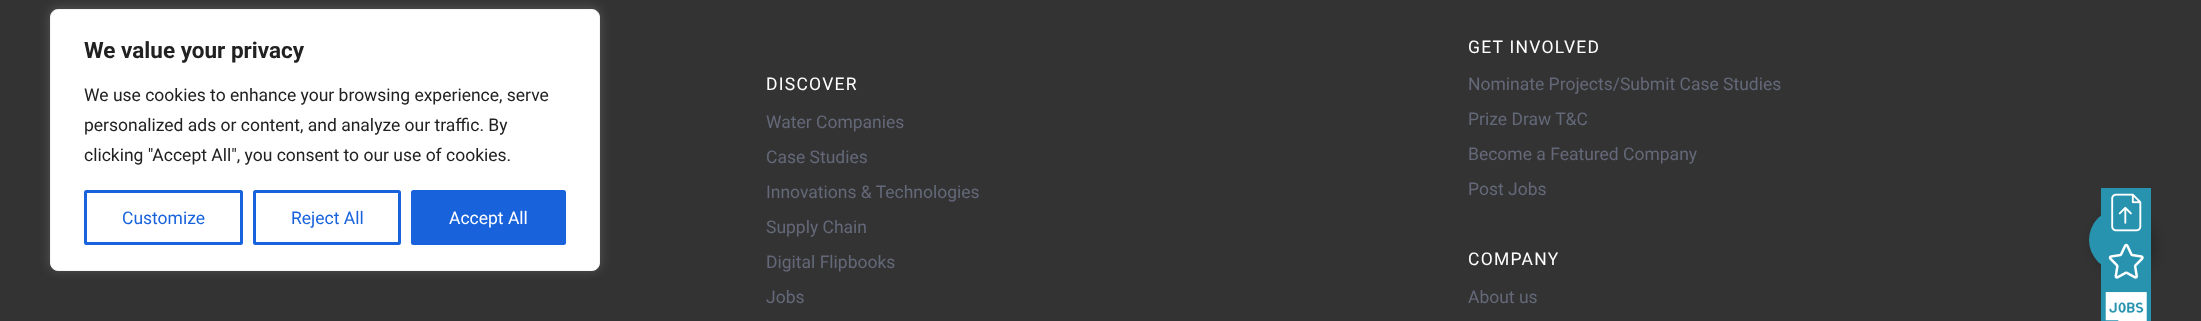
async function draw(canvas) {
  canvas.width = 2201
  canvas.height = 321
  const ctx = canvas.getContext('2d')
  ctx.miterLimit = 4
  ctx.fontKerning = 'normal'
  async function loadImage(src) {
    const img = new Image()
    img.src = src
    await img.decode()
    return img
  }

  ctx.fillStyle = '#333'
  ctx.fillRect(0, 0, 2201, 321)
  ctx.fillStyle = '#acabab4d'
  ctx.filter = 'blur(6px)'
  ctx.beginPath()
  ctx.roundRect(50, 8, 550, 262, 8)
  ctx.fill()
  ctx.filter = 'none'
  ctx.fillStyle = '#fff'
  ctx.beginPath()
  ctx.roundRect(50.5, 9.5, 549, 261, 7.5)
  ctx.fill()
  ctx.strokeStyle = '#f4f4f4'
  ctx.stroke()
  ctx.font = 'bold 22.5px Roboto'
  ctx.fillStyle = '#212121'
  ctx.fillText('We value your privacy', 84, 58)
  ctx.font = '17.5px Roboto'
  ctx.fillText('We use cookies to enhance your browsing experience, serve', 84, 101)
  ctx.fillText('personalized ads or content, and analyze our traffic. By', 84, 131)
  ctx.fillText('clicking "Accept All", you consent to our use of cookies.', 84, 161)
  ctx.beginPath()
  ctx.roundRect(85.5, 191.5, 156, 52, 1)
  ctx.strokeStyle = '#1863dc'
  ctx.lineWidth = 3
  ctx.stroke()
  ctx.fillStyle = '#1863dc'
  ctx.fillText('Customize', 122, 224)
  ctx.beginPath()
  ctx.roundRect(254.5, 191.5, 145, 52, 1)
  ctx.stroke()
  ctx.fillText('Reject All', 291, 224)
  ctx.beginPath()
  ctx.roundRect(412.5, 191.5, 152, 52, 1)
  ctx.fill()
  ctx.stroke()
  ctx.fillStyle = '#fff'
  ctx.fillText('Accept All', 449, 224)
  ctx.letterSpacing = '1.25px'
  ctx.fillText('DISCOVER', 766, 90)
  ctx.letterSpacing = '0px'
  ctx.fillStyle = '#646979'
  ctx.fillText('Water Companies', 766, 128)
  ctx.fillText('Case Studies', 766, 163)
  ctx.fillText('Innovations & Technologies', 766, 198)
  ctx.fillText('Supply Chain', 766, 233)
  ctx.fillText('Digital Flipbooks', 766, 268)
  ctx.fillText('Jobs', 766, 303)
  ctx.letterSpacing = '1.25px'
  ctx.fillStyle = '#fff'
  ctx.fillText('GET INVOLVED', 1468, 53)
  ctx.letterSpacing = '0px'
  ctx.fillStyle = '#646979'
  ctx.fillText('Nominate Projects/Submit Case Studies', 1468, 90)
  ctx.fillText('Prize Draw T&C', 1468, 125)
  ctx.fillText('Become a Featured Company', 1468, 160)
  ctx.fillText('Post Jobs', 1468, 195)
  ctx.letterSpacing = '1.25px'
  ctx.fillStyle = '#fff'
  ctx.fillText('COMPANY', 1468, 265)
  ctx.letterSpacing = '0px'
  ctx.fillStyle = '#646979'
  ctx.fillText('About us', 1468, 303)
  ctx.fillStyle = '#00000033'
  ctx.filter = 'blur(6px)'
  ctx.beginPath()
  ctx.roundRect(2094, 214, 62, 62, 31)
  ctx.fill()
  ctx.filter = 'none'
  ctx.fillStyle = '#2893af'
  ctx.beginPath()
  ctx.arc(2120, 240, 31, 0, 2 * Math.PI)
  ctx.fill()
  ctx.fillRect(2101, 188, 50, 133)
  ctx.drawImage(await loadImage('image0.png'), 2111, 193, 31, 39)
  ctx.drawImage(await loadImage('image1.png'), 2108, 243, 36, 36)
  ctx.drawImage(await loadImage('image2.png'), 2105, 292, 42, 29)
}

draw(document.querySelector('canvas'))
